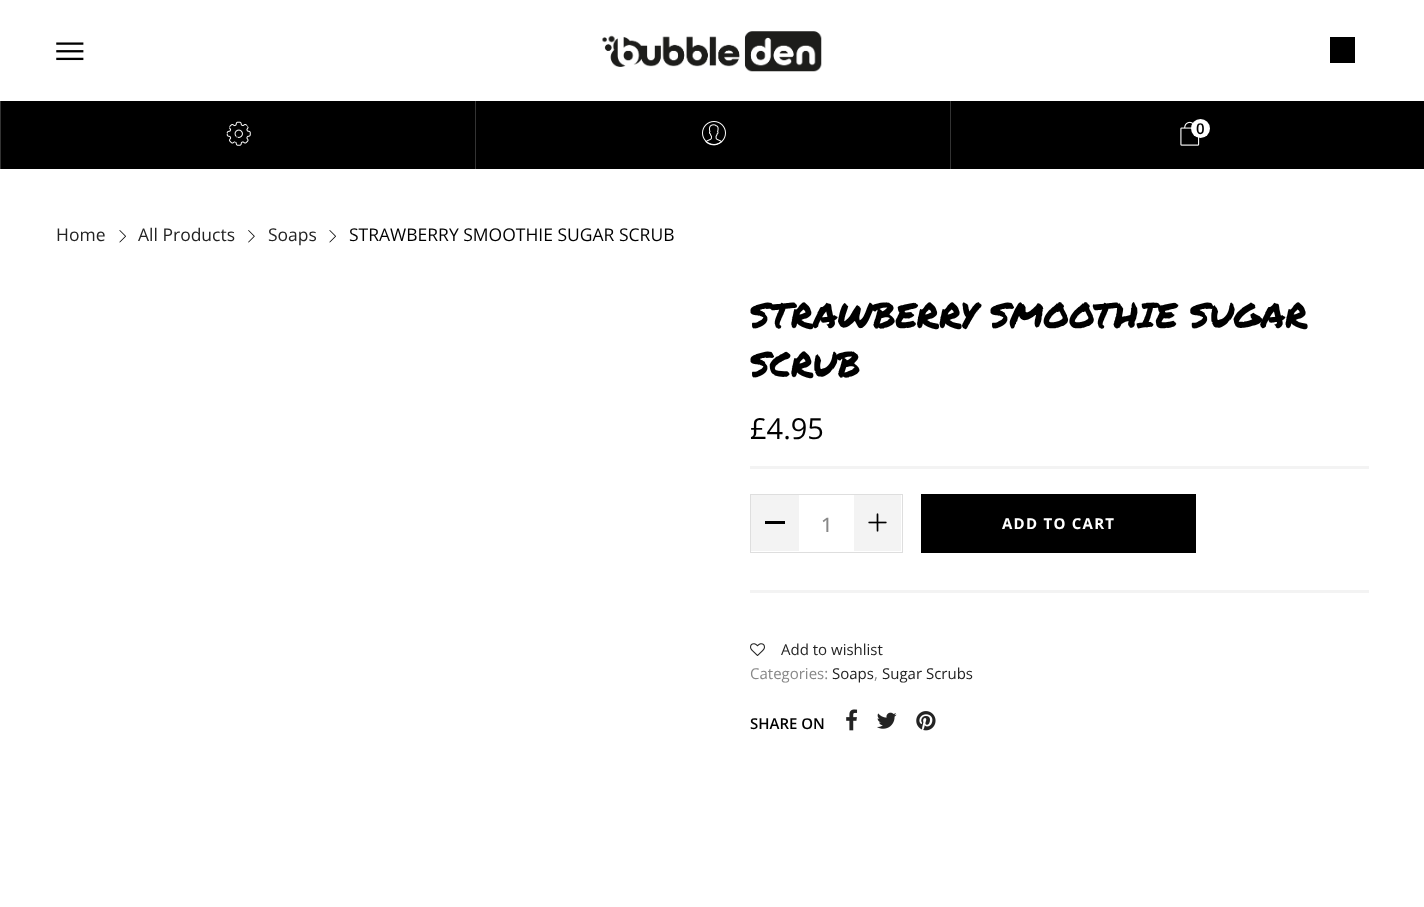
async function draw(canvas) {
  canvas.width = 1424
  canvas.height = 907
  const ctx = canvas.getContext('2d')
  ctx.miterLimit = 4
  ctx.fontKerning = 'normal'
  async function loadImage(src) {
    const img = new Image()
    img.src = src
    await img.decode()
    return img
  }

  ctx.fillStyle = '#fff'
  ctx.fillRect(0, 0, 1424, 907)
  ctx.drawImage(await loadImage('image0.png'), 56, 42, 28, 19)
  ctx.drawImage(await loadImage('image1.png'), 602, 31, 220, 41)
  ctx.fillStyle = '#000'
  ctx.fillRect(1330, 37, 25, 26)
  ctx.fillRect(1, 101, 1423, 68)
  ctx.fillStyle = '#333'
  ctx.fillRect(0, 101, 1, 68)
  ctx.drawImage(await loadImage('image2.png'), 226, 121, 25, 25)
  ctx.fillRect(475, 101, 1, 68)
  ctx.drawImage(await loadImage('image3.png'), 702, 121, 24, 25)
  ctx.fillRect(950, 101, 1, 68)
  ctx.drawImage(await loadImage('image4.png'), 1180, 121, 20, 25)
  ctx.fillStyle = '#fff'
  ctx.beginPath()
  ctx.arc(1200.5, 128.5, 9.5, 0, 2 * Math.PI)
  ctx.fill()
  ctx.font = '600 15px Open Sans'
  ctx.fillStyle = '#000'
  ctx.fillText('0', 1196, 134)
  ctx.font = '17.5px Open Sans'
  ctx.fillStyle = '#232323'
  ctx.fillText('Home', 56, 241)
  ctx.drawImage(await loadImage('image5.png'), 119, 230, 7, 13)
  ctx.fillText('All Products', 138, 241)
  ctx.drawImage(await loadImage('image6.png'), 248, 230, 7, 13)
  ctx.fillText('Soaps', 268, 241)
  ctx.drawImage(await loadImage('image5.png'), 329, 230, 7, 13)
  ctx.fillStyle = '#000'
  ctx.fillText('STRAWBERRY SMOOTHIE SUGAR SCRUB', 349, 241)
  ctx.letterSpacing = '-0.35px'
  ctx.font = '35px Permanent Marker'
  ctx.fillText('STRAWBERRY SMOOTHIE SUGAR', 750, 328)
  ctx.fillText('SCRUB', 750, 377)
  ctx.fillStyle = '#f3f3f3'
  ctx.fillRect(750, 466, 619, 3)
  ctx.letterSpacing = '0px'
  ctx.font = '29px Open Sans'
  ctx.fillStyle = '#000'
  ctx.fillText('£4.95', 750, 439)
  ctx.fillStyle = '#f3f3f3'
  ctx.fillRect(750, 590, 619, 3)
  ctx.strokeStyle = '#dedede'
  ctx.strokeRect(750.5, 494.5, 152, 58)
  ctx.fillRect(751, 495, 48, 56)
  ctx.fillStyle = '#000'
  ctx.fillRect(765, 521, 20, 3)
  ctx.font = '500 20px Open Sans'
  ctx.fillStyle = '#888'
  ctx.fillText('1', 821, 532)
  ctx.fillStyle = '#f3f3f3'
  ctx.fillRect(854, 495, 47, 56)
  ctx.drawImage(await loadImage('image7.png'), 868, 513, 19, 19)
  ctx.fillStyle = '#000'
  ctx.fillRect(921, 494, 275, 59)
  ctx.letterSpacing = '1.25px'
  ctx.font = 'bold 15px Open Sans'
  ctx.fillStyle = '#fff'
  ctx.fillText('ADD TO CART', 1002, 529)
  ctx.drawImage(await loadImage('image8.png'), 750, 643, 15, 13)
  ctx.letterSpacing = '0px'
  ctx.font = '15px Open Sans'
  ctx.fillStyle = '#232323'
  ctx.fillText('Add to wishlist', 781, 655)
  ctx.fillStyle = '#888'
  ctx.fillText('Categories:', 750, 679)
  ctx.fillStyle = '#232323'
  ctx.fillText('Soaps', 832, 679)
  ctx.fillStyle = '#888'
  ctx.fillText(',', 874, 679)
  ctx.fillStyle = '#232323'
  ctx.fillText('Sugar Scrubs', 882, 679)
  ctx.font = '600 15px Open Sans'
  ctx.fillStyle = '#000'
  ctx.fillText('SHARE ON', 750, 729)
  ctx.drawImage(await loadImage('image9.png'), 846, 709, 12, 22)
  ctx.drawImage(await loadImage('image10.png'), 877, 712, 20, 17)
  ctx.drawImage(await loadImage('image11.png'), 916, 711, 20, 20)
}

draw(document.querySelector('canvas'))
